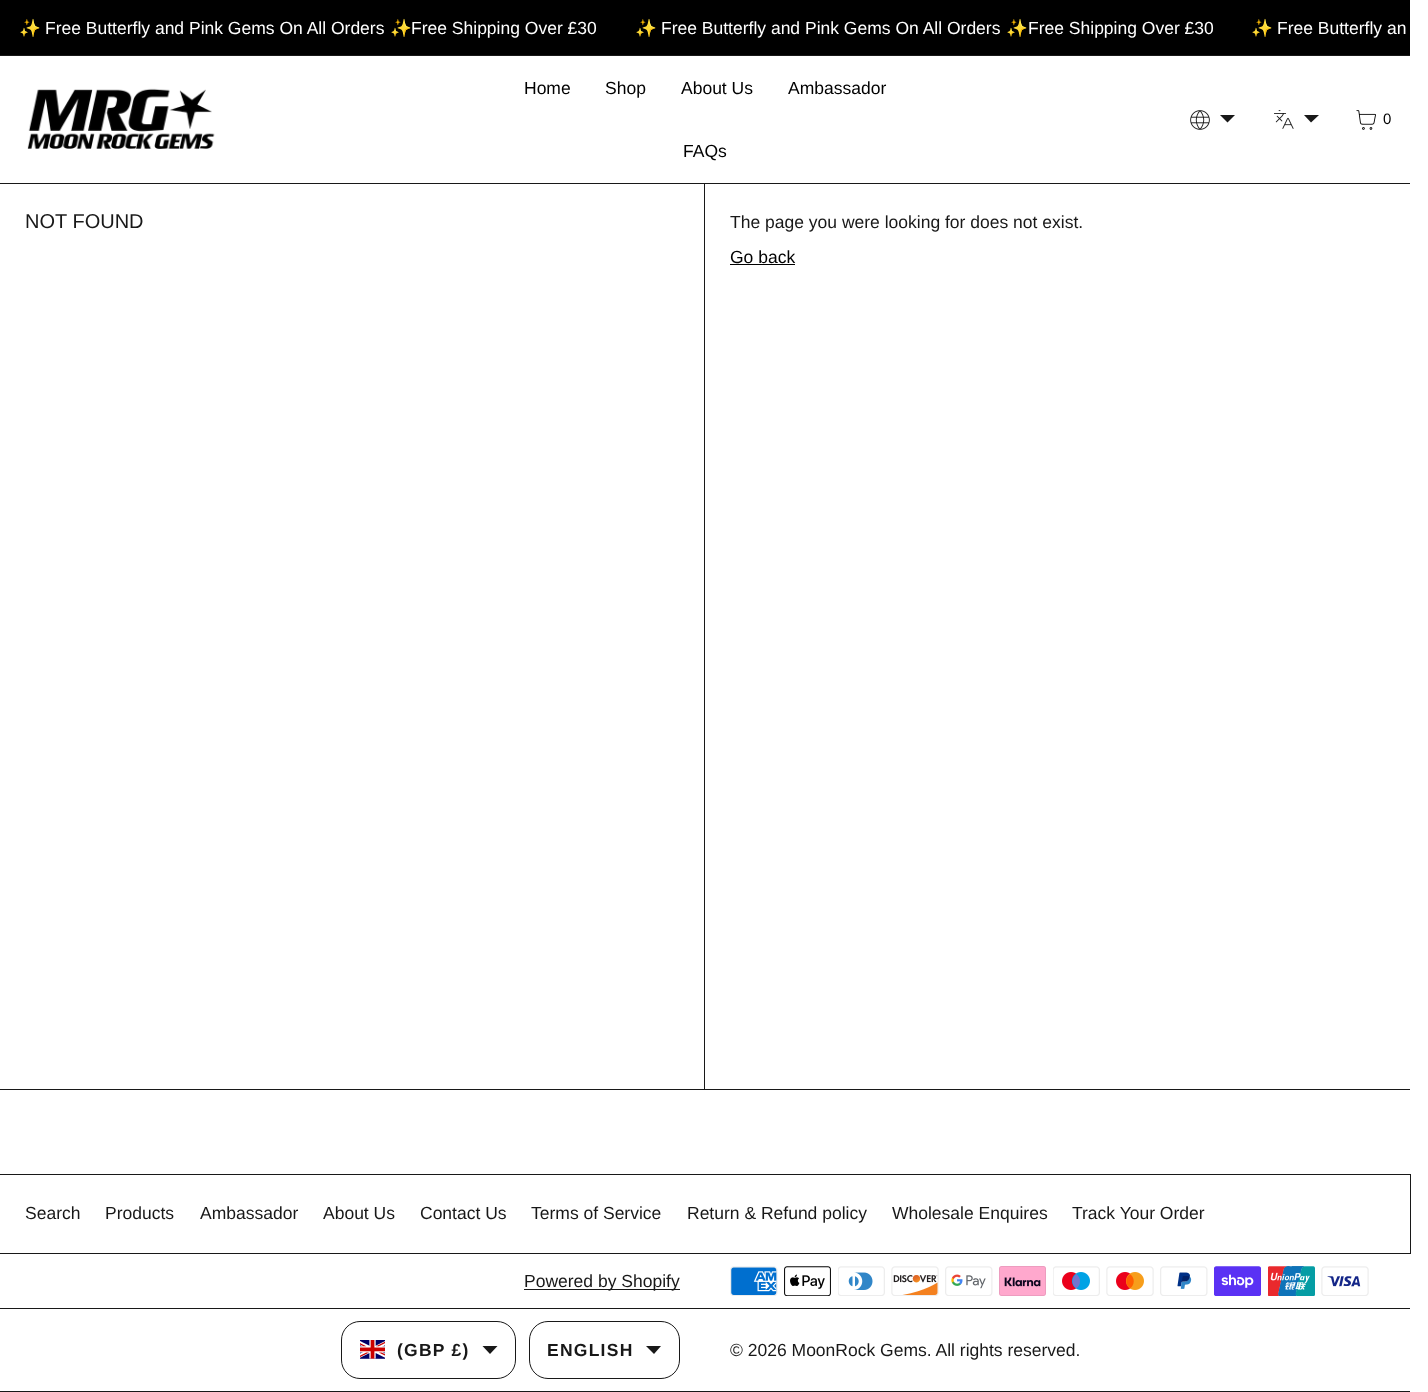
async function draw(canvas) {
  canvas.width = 1428
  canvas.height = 1392
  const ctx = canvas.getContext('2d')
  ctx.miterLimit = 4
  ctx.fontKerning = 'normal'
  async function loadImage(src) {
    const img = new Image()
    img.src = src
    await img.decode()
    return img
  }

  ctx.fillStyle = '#fff'
  ctx.fillRect(0, 0, 1428, 1392)
  ctx.fillStyle = '#000'
  ctx.fillRect(0, 0, 1410, 55)
  ctx.fillStyle = '#181818'
  ctx.fillRect(0, 55, 1410, 1)
  ctx.font = '17.5px Noto Color Emoji'
  ctx.fillStyle = '#fff'
  ctx.fillText('✨', 19, 34)
  ctx.font = '17.5px Liberation Sans'
  ctx.fillText('Free Butterfly and Pink Gems On All Orders', 45, 34)
  ctx.font = '17.5px Noto Color Emoji'
  ctx.fillText('✨', 390, 34)
  ctx.font = '17.5px Liberation Sans'
  ctx.fillText('Free Shipping Over £30', 411, 34)
  ctx.font = '17.5px Noto Color Emoji'
  ctx.fillText('✨', 635, 34)
  ctx.font = '17.5px Liberation Sans'
  ctx.fillText('Free Butterfly and Pink Gems On All Orders', 661, 34)
  ctx.font = '17.5px Noto Color Emoji'
  ctx.fillText('✨', 1006, 34)
  ctx.font = '17.5px Liberation Sans'
  ctx.fillText('Free Shipping Over £30', 1028, 34)
  ctx.font = '17.5px Noto Color Emoji'
  ctx.fillText('✨', 1251, 34)
  ctx.font = '17.5px Liberation Sans'
  ctx.fillText('Free Butterfly an', 1277, 34)
  ctx.fillStyle = '#181818'
  ctx.fillRect(0, 183, 1410, 1)
  ctx.drawImage(await loadImage('image0.png'), 27, 88, 188, 61)
  ctx.fillStyle = '#000'
  ctx.fillText('Home', 524, 94)
  ctx.fillText('Shop', 605, 94)
  ctx.fillText('About Us', 681, 94)
  ctx.fillText('Ambassador', 788, 94)
  ctx.fillText('FAQs', 683, 157)
  ctx.drawImage(await loadImage('image1.png'), 1190, 110, 20, 20)
  ctx.fillStyle = '#181818'
  ctx.beginPath()
  ctx.moveTo(1220, 115)
  ctx.lineTo(1235, 115)
  ctx.lineTo(1227.5, 122.5)
  ctx.closePath()
  ctx.fill()
  ctx.drawImage(await loadImage('image2.png'), 1274, 110, 20, 19)
  ctx.beginPath()
  ctx.moveTo(1304, 115)
  ctx.lineTo(1319, 115)
  ctx.lineTo(1311, 122.5)
  ctx.closePath()
  ctx.fill()
  ctx.drawImage(await loadImage('image3.png'), 1356, 110, 20, 20)
  ctx.letterSpacing = '1.25px'
  ctx.font = '15px Liberation Sans'
  ctx.fillStyle = '#000'
  ctx.fillText('0', 1383, 124)
  ctx.fillStyle = '#181818'
  ctx.fillRect(0, 1089, 1410, 1)
  ctx.fillRect(704, 184, 1, 905)
  ctx.letterSpacing = '0px'
  ctx.font = '20px Liberation Sans'
  ctx.fillText('NOT FOUND', 25, 228)
  ctx.font = '17.5px Liberation Sans'
  ctx.fillText('The page you were looking for does not exist.', 730, 228)
  ctx.fillStyle = '#000'
  ctx.fillText('Go back', 730, 263)
  ctx.fillRect(730, 264, 65, 1)
  ctx.strokeStyle = '#181818'
  ctx.strokeRect(-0.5, 1174.5, 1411, 79)
  ctx.fillStyle = '#181818'
  ctx.fillText('Search', 25, 1219)
  ctx.fillText('Products', 105, 1219)
  ctx.fillText('Ambassador', 200, 1219)
  ctx.fillText('About Us', 323, 1219)
  ctx.fillText('Contact Us', 420, 1219)
  ctx.fillText('Terms of Service', 531, 1219)
  ctx.fillText('Return & Refund policy', 687, 1219)
  ctx.fillText('Wholesale Enquires', 892, 1219)
  ctx.fillText('Track Your Order', 1072, 1219)
  ctx.fillRect(0, 1391, 1410, 1)
  ctx.fillRect(524, 1289, 156, 1)
  ctx.fillText('Powered by Shopify', 524, 1287)
  ctx.drawImage(await loadImage('image4.png'), 730, 1266, 48, 30)
  ctx.drawImage(await loadImage('image5.png'), 784, 1266, 47, 30)
  ctx.drawImage(await loadImage('image6.png'), 838, 1266, 47, 30)
  ctx.drawImage(await loadImage('image7.png'), 891, 1266, 48, 30)
  ctx.drawImage(await loadImage('image8.png'), 945, 1266, 48, 30)
  ctx.drawImage(await loadImage('image9.png'), 999, 1266, 47, 30)
  ctx.drawImage(await loadImage('image10.png'), 1053, 1266, 47, 30)
  ctx.drawImage(await loadImage('image11.png'), 1106, 1266, 48, 30)
  ctx.drawImage(await loadImage('image12.png'), 1160, 1266, 48, 30)
  ctx.drawImage(await loadImage('image13.png'), 1214, 1266, 47, 30)
  ctx.drawImage(await loadImage('image14.png'), 1268, 1266, 47, 30)
  ctx.drawImage(await loadImage('image15.png'), 1321, 1266, 48, 30)
  ctx.fillRect(0, 1308, 1410, 1)
  ctx.beginPath()
  ctx.roundRect(341.5, 1321.5, 174, 57, 18.5)
  ctx.stroke()
  ctx.drawImage(await loadImage('image16.png'), 360, 1340, 25, 19)
  ctx.letterSpacing = '1.25px'
  ctx.font = 'bold 17.5px Liberation Sans'
  ctx.fillText('(GBP £)', 397, 1356)
  ctx.beginPath()
  ctx.moveTo(482.5, 1346)
  ctx.lineTo(497.5, 1346)
  ctx.lineTo(490, 1354)
  ctx.closePath()
  ctx.fill()
  ctx.beginPath()
  ctx.roundRect(529.5, 1321.5, 150, 57, 18.5)
  ctx.stroke()
  ctx.fillText('ENGLISH', 547, 1356)
  ctx.beginPath()
  ctx.moveTo(646, 1346)
  ctx.lineTo(661, 1346)
  ctx.lineTo(654, 1354)
  ctx.closePath()
  ctx.fill()
  ctx.letterSpacing = '0px'
  ctx.font = '17.5px Liberation Sans'
  ctx.fillText('© 2026 MoonRock Gems. All rights reserved.', 730, 1356)
}

draw(document.querySelector('canvas'))
